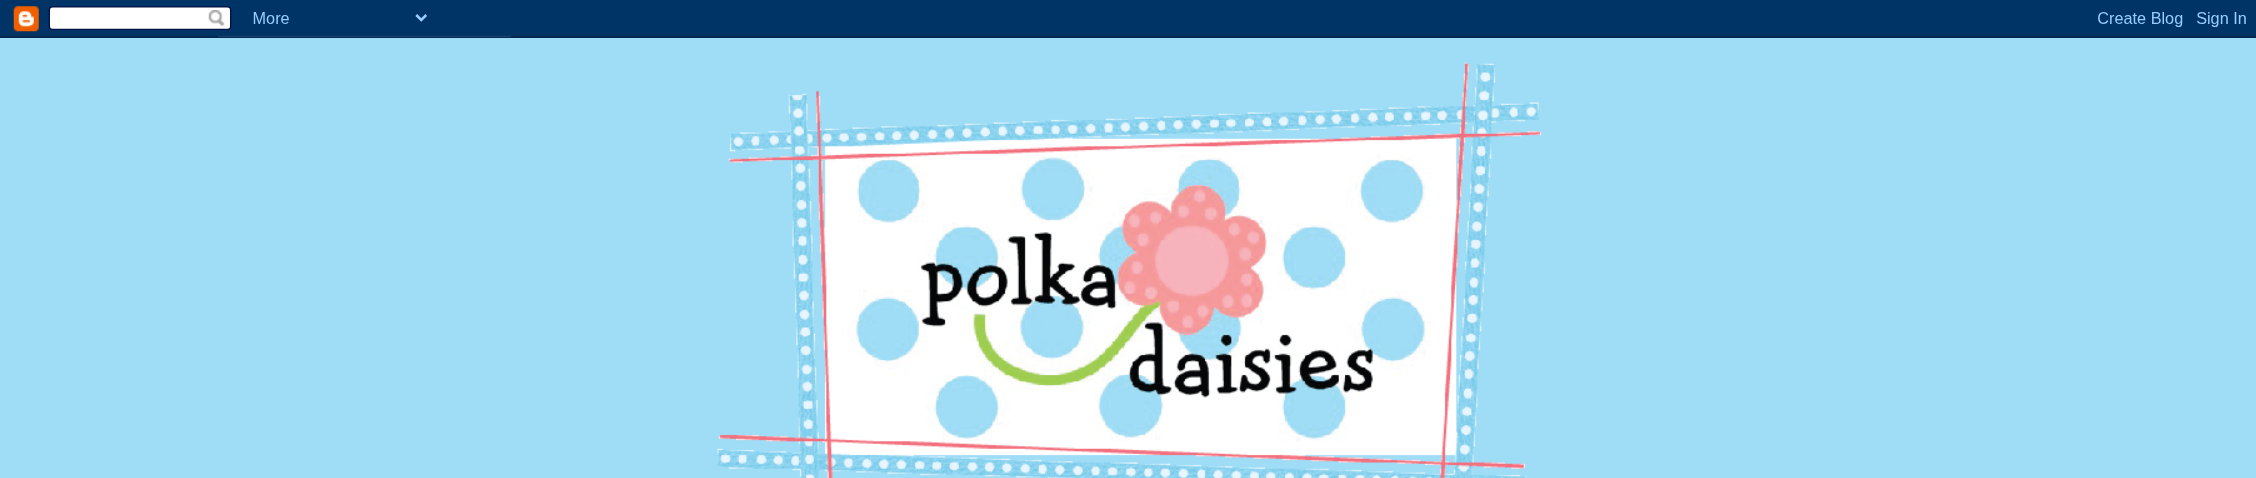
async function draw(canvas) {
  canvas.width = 2256
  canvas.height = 478
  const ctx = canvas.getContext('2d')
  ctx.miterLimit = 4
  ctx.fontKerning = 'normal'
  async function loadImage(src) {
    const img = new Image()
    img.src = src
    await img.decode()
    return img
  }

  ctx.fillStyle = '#9fddf7'
  ctx.fillRect(0, 0, 2256, 478)
  ctx.drawImage(await loadImage('image0.png'), 0, 0, 2256, 38)
  ctx.drawImage(await loadImage('image1.png'), 717, 62, 825, 416)
}

draw(document.querySelector('canvas'))
